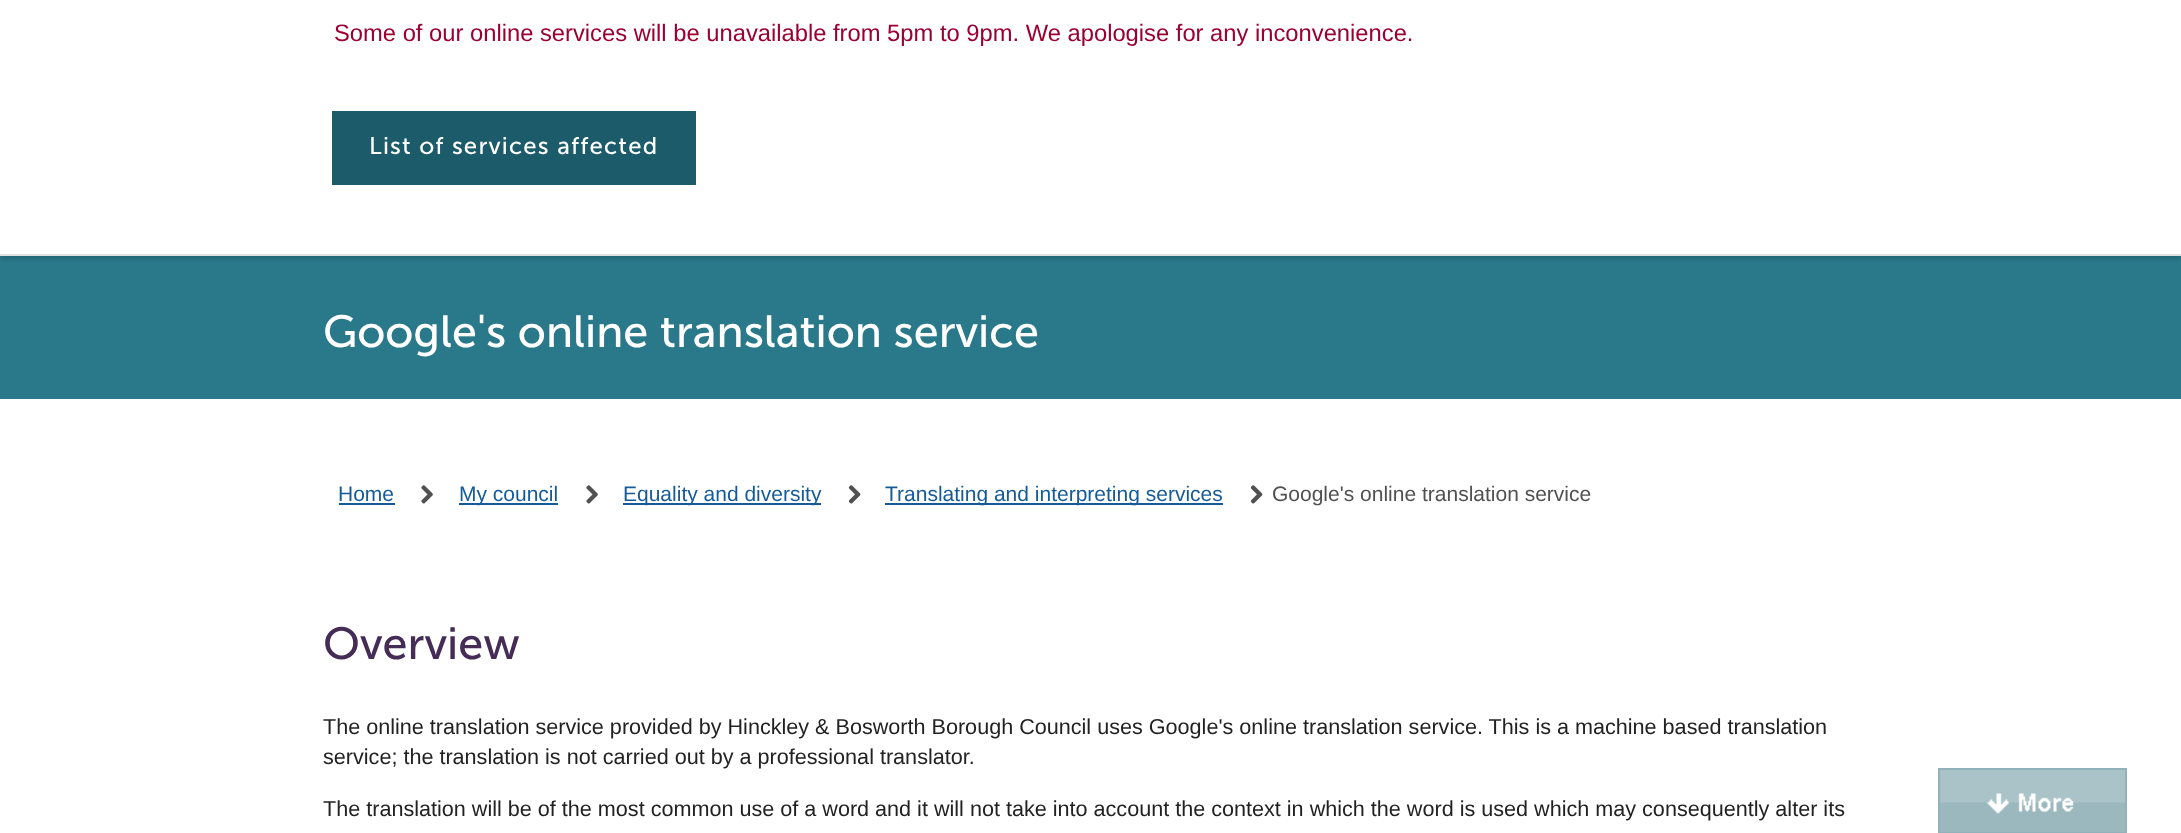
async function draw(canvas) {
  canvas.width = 2181
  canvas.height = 833
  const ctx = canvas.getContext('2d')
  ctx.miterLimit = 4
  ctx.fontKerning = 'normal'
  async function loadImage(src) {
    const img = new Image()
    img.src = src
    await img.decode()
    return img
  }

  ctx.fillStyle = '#fff'
  ctx.fillRect(0, 0, 2181, 833)
  ctx.fillStyle = '#29798a'
  ctx.fillRect(0, 256, 2181, 143)
  ctx.save()
  ctx.beginPath()
  ctx.rect(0, 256, 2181, 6)
  ctx.clip()
  ctx.fillStyle = '#00000033'
  ctx.filter = 'blur(3px)'
  ctx.beginPath()
  ctx.rect(0, -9, 2181, 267)
  ctx.fill()
  ctx.filter = 'none'
  ctx.restore()
  ctx.fillStyle = '#e1e1e1'
  ctx.fillRect(0, 254, 2181, 2)
  ctx.font = '23.75px Liberation Sans'
  ctx.fillStyle = '#9b0033'
  ctx.fillText('Some of our online services will be unavailable from 5pm to 9pm. We apologise for any inconvenience.', 334, 41)
  ctx.fillStyle = '#1c5b69'
  ctx.fillRect(332, 111, 364, 74)
  ctx.letterSpacing = '1.2px'
  ctx.font = '24px Museo Sans'
  ctx.fillStyle = '#fff'
  ctx.fillText('List of services affected', 369, 154)
  ctx.letterSpacing = '0px'
  ctx.font = '45px Museo Sans'
  ctx.fillText('Google\'s online translation service', 323, 347)
  ctx.font = '21px Liberation Sans'
  ctx.fillStyle = '#165b99'
  ctx.fillText('Home', 338, 501)
  ctx.fillRect(339, 503, 56, 2)
  ctx.drawImage(await loadImage('image0.png'), 421, 485, 12, 19)
  ctx.fillRect(459, 503, 99, 2)
  ctx.fillText('My council', 459, 501)
  ctx.drawImage(await loadImage('image0.png'), 586, 485, 12, 19)
  ctx.fillRect(623, 503, 198, 2)
  ctx.fillText('Equality and diversity', 623, 501)
  ctx.drawImage(await loadImage('image1.png'), 848, 485, 13, 19)
  ctx.fillRect(885, 503, 338, 2)
  ctx.fillText('Translating and interpreting services', 885, 501)
  ctx.drawImage(await loadImage('image1.png'), 1250, 485, 13, 19)
  ctx.fillStyle = '#515151'
  ctx.fillText('Google\'s online translation service', 1272, 501)
  ctx.font = '45px Museo Sans'
  ctx.fillStyle = '#452c56'
  ctx.fillText('Overview', 323, 659)
  ctx.font = '21.6px Liberation Sans'
  ctx.fillStyle = '#222'
  ctx.fillText('The online translation service provided by Hinckley & Bosworth Borough Council uses Google\'s online translation service. This is a machine based translation', 323, 734)
  ctx.fillText('service; the translation is not carried out by a professional translator.', 323, 764)
  ctx.fillText('The translation will be of the most common use of a word and it will not take into account the context in which the word is used which may consequently alter its', 323, 816)
  ctx.drawImage(await loadImage('image2.png'), 1940, 770, 185, 62)
  ctx.strokeStyle = '#92b2bb'
  ctx.lineWidth = 2
  ctx.strokeRect(1939, 769, 187, 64)
}

draw(document.querySelector('canvas'))
